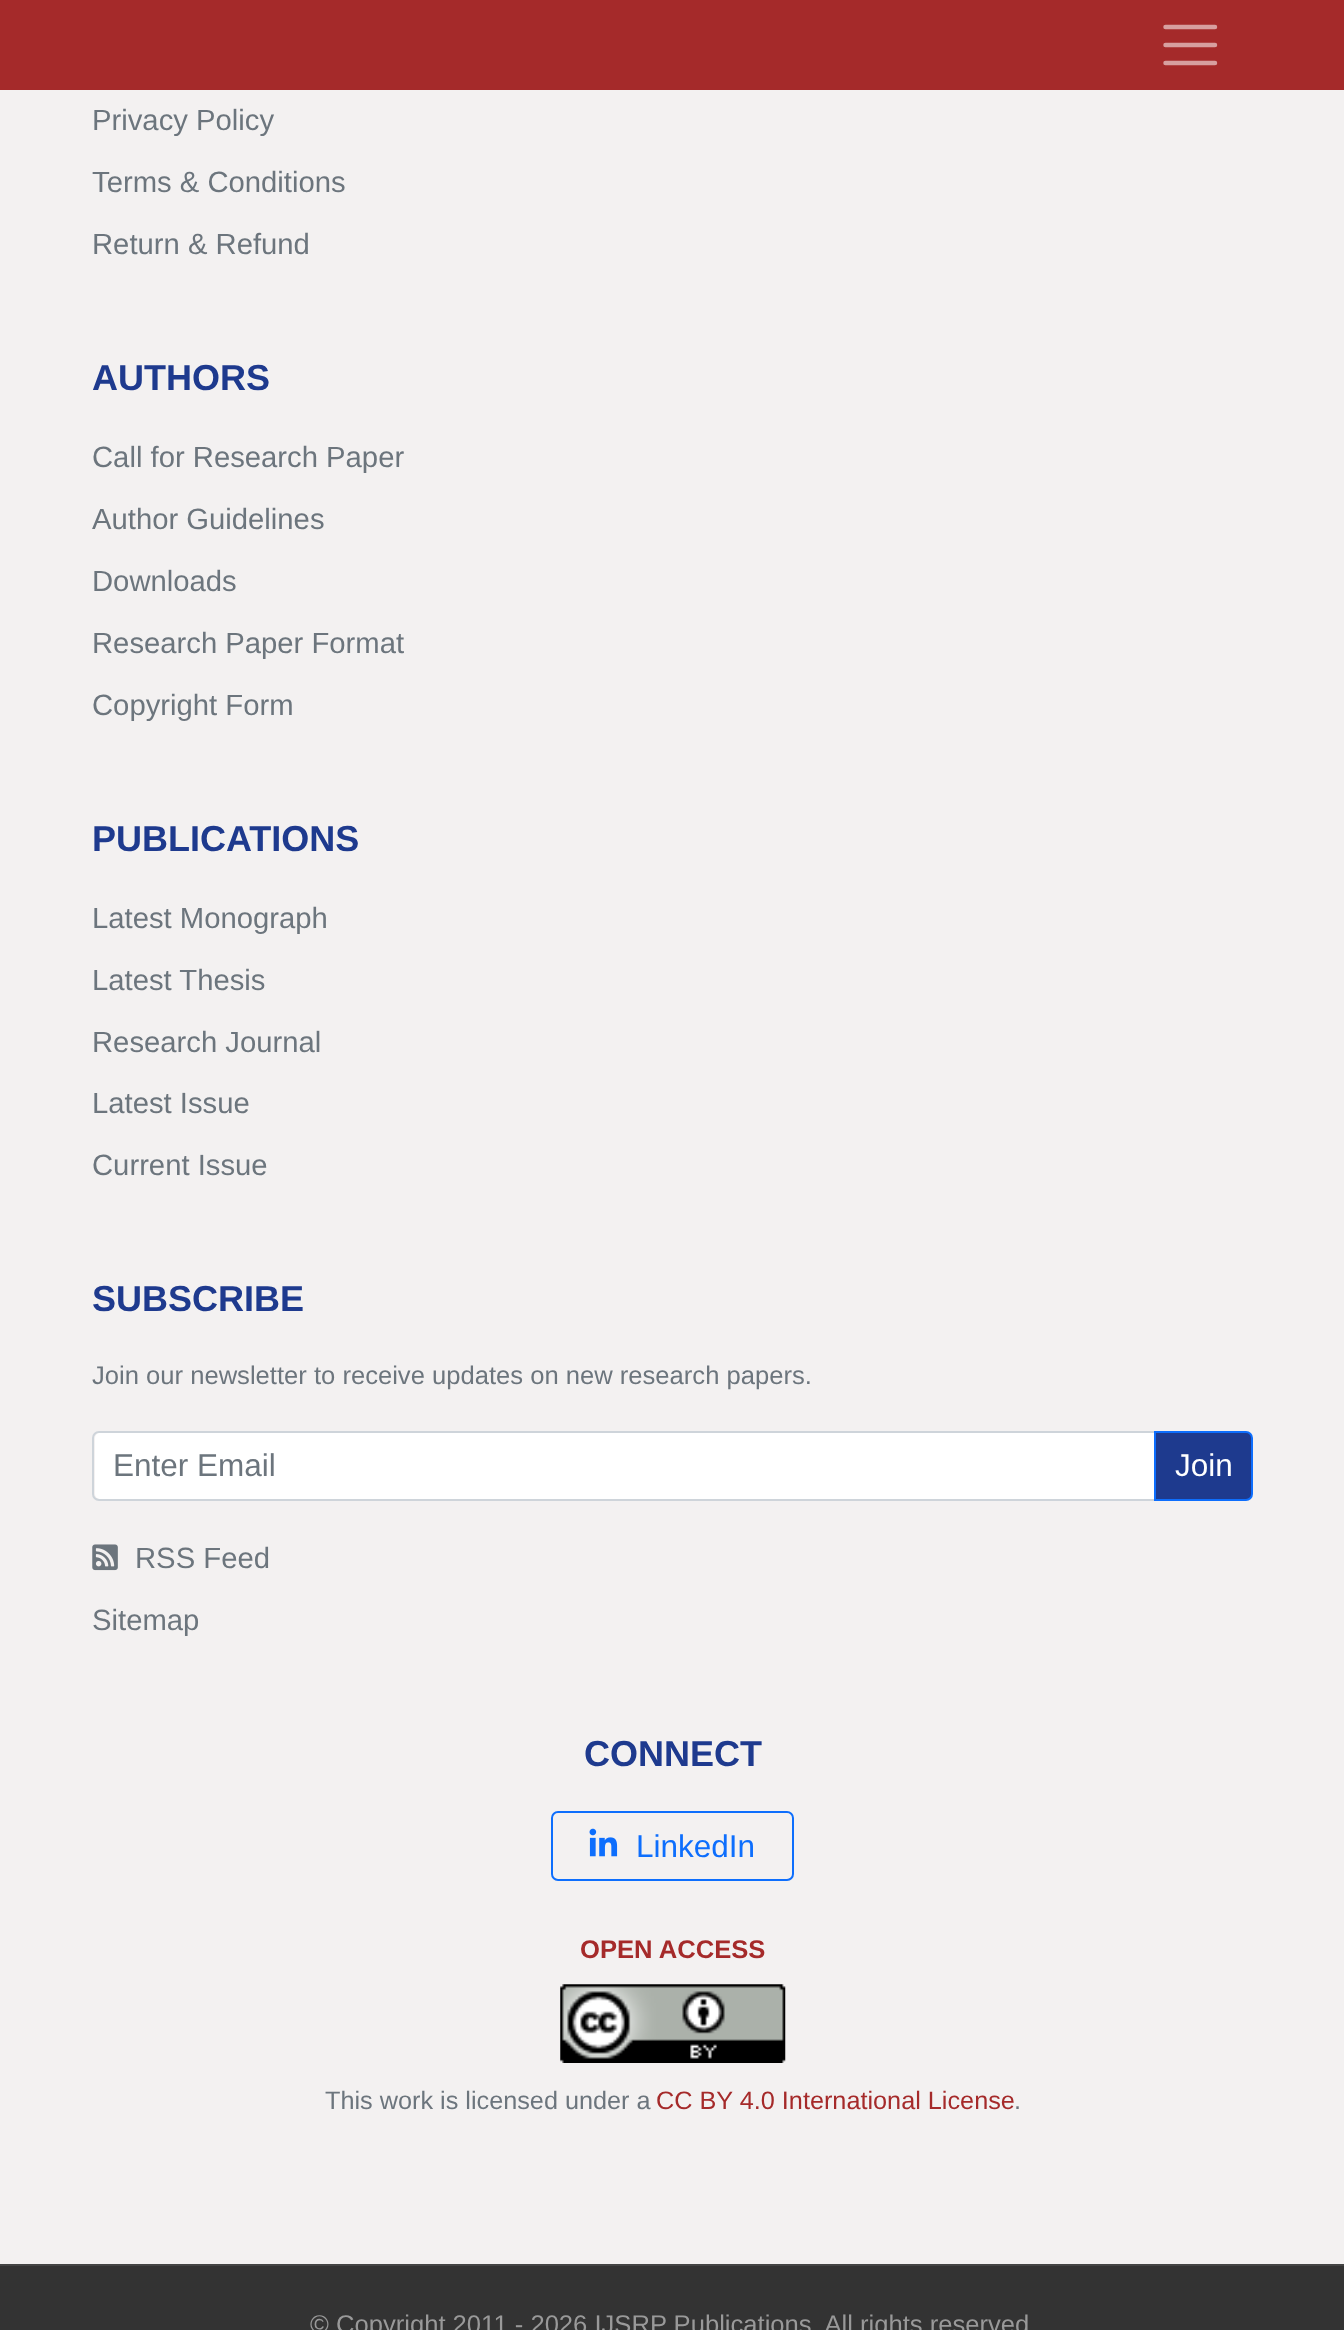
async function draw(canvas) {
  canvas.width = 1344
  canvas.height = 2330
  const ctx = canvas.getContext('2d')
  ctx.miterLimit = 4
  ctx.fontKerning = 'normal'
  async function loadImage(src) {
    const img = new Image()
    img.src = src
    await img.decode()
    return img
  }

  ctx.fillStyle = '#f3f1f1'
  ctx.fillRect(0, 0, 1344, 2330)
  ctx.fillStyle = '#a52a2a'
  ctx.fillRect(0, 0, 1344, 90)
  ctx.beginPath()
  ctx.moveTo(1165.5, 27)
  ctx.lineTo(1215, 27)
  ctx.moveTo(1165.5, 45)
  ctx.lineTo(1215, 45)
  ctx.moveTo(1165.5, 63)
  ctx.lineTo(1215, 63)
  ctx.strokeStyle = '#d79f9f'
  ctx.lineWidth = 4.5
  ctx.lineCap = 'round'
  ctx.stroke()
  ctx.font = '29.25px Liberation Sans'
  ctx.fillStyle = '#6c757d'
  ctx.fillText('Privacy Policy', 92, 130)
  ctx.fillText('Terms & Conditions', 92, 192)
  ctx.fillText('Return & Refund', 92, 254)
  ctx.font = 'bold 36px Liberation Sans'
  ctx.fillStyle = '#1e3a8e'
  ctx.fillText('AUTHORS', 92, 390)
  ctx.font = '29.25px Liberation Sans'
  ctx.fillStyle = '#6c757d'
  ctx.fillText('Call for Research Paper', 92, 467)
  ctx.fillText('Author Guidelines', 92, 529)
  ctx.fillText('Downloads', 92, 591)
  ctx.fillText('Research Paper Format', 92, 653)
  ctx.fillText('Copyright Form', 92, 715)
  ctx.font = 'bold 36px Liberation Sans'
  ctx.fillStyle = '#1e3a8e'
  ctx.fillText('PUBLICATIONS', 92, 851)
  ctx.font = '29.25px Liberation Sans'
  ctx.fillStyle = '#6c757d'
  ctx.fillText('Latest Monograph', 92, 928)
  ctx.fillText('Latest Thesis', 92, 990)
  ctx.fillText('Research Journal', 92, 1052)
  ctx.fillText('Latest Issue', 92, 1113)
  ctx.fillText('Current Issue', 92, 1175)
  ctx.font = 'bold 36px Liberation Sans'
  ctx.fillStyle = '#1e3a8e'
  ctx.fillText('SUBSCRIBE', 92, 1311)
  ctx.font = '25.6px Liberation Sans'
  ctx.fillStyle = '#6c757d'
  ctx.fillText('Join our newsletter to receive updates on new research papers.', 92, 1384)
  ctx.fillStyle = '#fff'
  ctx.beginPath()
  ctx.roundRect(95, 1433, 1059, 66, [5, 0, 0, 5])
  ctx.fill()
  ctx.beginPath()
  ctx.roundRect(93, 1432, 1063, 68, [6, 0, 0, 6])
  ctx.strokeStyle = '#ced4da'
  ctx.lineWidth = 2
  ctx.stroke()
  ctx.font = '31.5px Liberation Sans'
  ctx.fillStyle = '#6c757d'
  ctx.fillText('Enter Email', 113, 1476)
  ctx.fillStyle = '#1e3a8e'
  ctx.beginPath()
  ctx.roundRect(1155, 1432, 97, 68, [0, 6, 6, 0])
  ctx.fill()
  ctx.strokeStyle = '#0d6efd'
  ctx.stroke()
  ctx.fillStyle = '#fff'
  ctx.fillText('Join', 1175, 1476)
  ctx.drawImage(await loadImage('image0.png'), 92, 1544, 26, 27)
  ctx.font = '29.25px Liberation Sans'
  ctx.fillStyle = '#6c757d'
  ctx.fillText('RSS Feed', 135, 1568)
  ctx.fillText('Sitemap', 92, 1630)
  ctx.font = 'bold 36px Liberation Sans'
  ctx.fillStyle = '#1e3a8e'
  ctx.fillText('CONNECT', 584, 1766)
  ctx.beginPath()
  ctx.roundRect(552, 1812, 241, 68, 6)
  ctx.stroke()
  ctx.drawImage(await loadImage('image1.png'), 589, 1828, 29, 29)
  ctx.font = '31.5px Liberation Sans'
  ctx.fillStyle = '#0d6efd'
  ctx.fillText('LinkedIn', 636, 1857)
  ctx.font = 'bold 25.6px Liberation Sans'
  ctx.fillStyle = '#a52a2a'
  ctx.fillText('OPEN ACCESS', 580, 1958)
  ctx.drawImage(await loadImage('image2.png'), 560, 1984, 226, 79)
  ctx.font = '25.25px Liberation Sans'
  ctx.fillStyle = '#6c757d'
  ctx.fillText('This work is licensed under a', 325, 2109)
  ctx.fillStyle = '#a52a2a'
  ctx.fillText('CC BY 4.0 International License', 656, 2109)
  ctx.fillStyle = '#6c757d'
  ctx.fillText('.', 1014, 2109)
  ctx.fillStyle = '#333'
  ctx.fillRect(0, 2266, 1344, 64)
  ctx.fillStyle = '#444'
  ctx.fillRect(0, 2264, 1344, 2)
  ctx.font = '25.6px Liberation Sans'
  ctx.fillStyle = '#999'
  ctx.fillText('© Copyright 2011 - 2026 IJSRP Publications. All rights reserved', 310, 2333)
}

draw(document.querySelector('canvas'))
